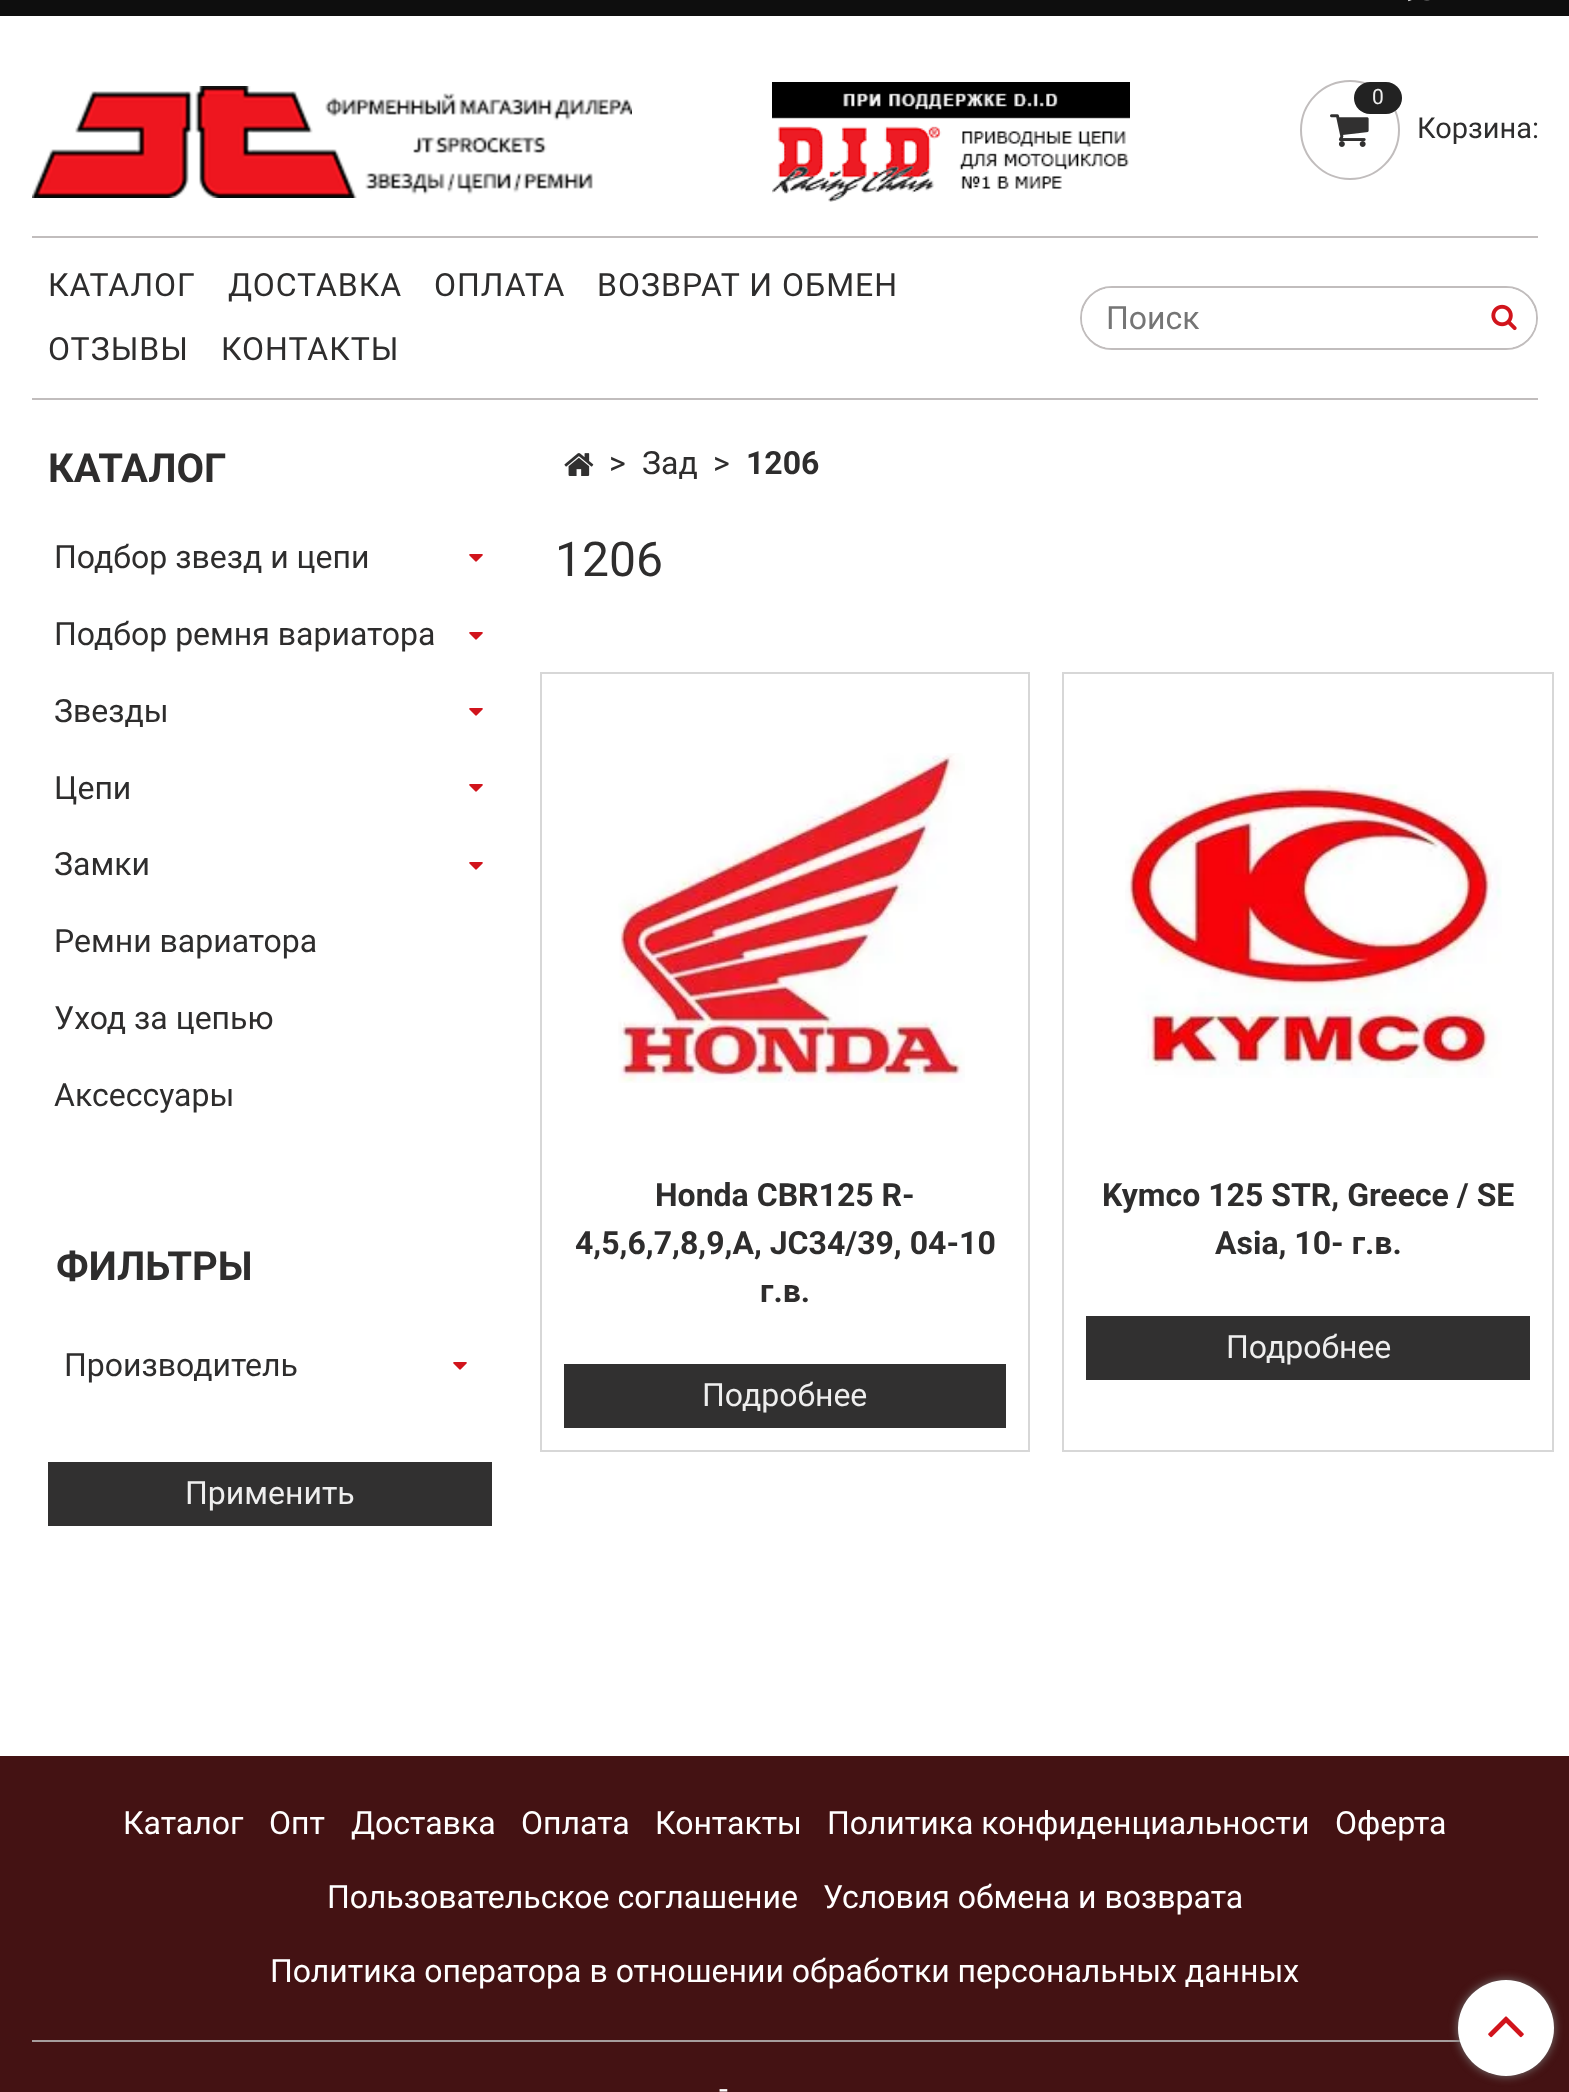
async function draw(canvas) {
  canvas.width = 1569
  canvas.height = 2092
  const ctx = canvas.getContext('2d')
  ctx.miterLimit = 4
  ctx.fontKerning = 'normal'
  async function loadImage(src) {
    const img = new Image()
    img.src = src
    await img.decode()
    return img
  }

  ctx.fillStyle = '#fff'
  ctx.fillRect(0, 0, 1569, 2092)
  ctx.fillStyle = '#0e0e0e'
  ctx.fillRect(0, 0, 1569, 16)
  ctx.drawImage(await loadImage('image0.png'), 1408, 0, 22, 2)
  ctx.drawImage(await loadImage('image1.png'), 32, 86, 600, 112)
  ctx.drawImage(await loadImage('image2.png'), 772, 82, 358, 120)
  ctx.beginPath()
  ctx.arc(1350, 130, 49, 0, 2 * Math.PI)
  ctx.strokeStyle = '#c1bdbd'
  ctx.lineWidth = 2
  ctx.stroke()
  ctx.fillStyle = '#222'
  ctx.beginPath()
  ctx.roundRect(1354, 82, 48, 32, 16)
  ctx.fill()
  ctx.font = '21px Roboto'
  ctx.fillStyle = '#eee'
  ctx.fillText('0', 1372, 104)
  ctx.drawImage(await loadImage('image3.png'), 1330, 114, 39, 33)
  ctx.font = '29px Roboto'
  ctx.fillStyle = '#2e2d2d'
  ctx.fillText('Корзина:', 1417, 138)
  ctx.fillStyle = '#c1bdbd'
  ctx.fillRect(32, 236, 1506, 2)
  ctx.fillRect(32, 398, 1506, 2)
  ctx.letterSpacing = '1px'
  ctx.font = '32px Roboto'
  ctx.fillStyle = '#2e2d2d'
  ctx.fillText('КАТАЛОГ', 48, 296)
  ctx.fillText('ДОСТАВКА', 228, 296)
  ctx.fillText('ОПЛАТА', 434, 296)
  ctx.fillText('ВОЗВРАТ И ОБМЕН', 597, 296)
  ctx.fillText('ОТЗЫВЫ', 48, 360)
  ctx.fillText('КОНТАКТЫ', 221, 360)
  ctx.beginPath()
  ctx.roundRect(1081, 287, 456, 62, 31)
  ctx.stroke()
  ctx.fillStyle = '#fff'
  ctx.beginPath()
  ctx.roundRect(1082, 288, 390, 60, [30, 0, 0, 30])
  ctx.fill()
  ctx.letterSpacing = '0px'
  ctx.fillStyle = '#757575'
  ctx.fillText('Поиск', 1106, 329)
  ctx.fillStyle = '#fff'
  ctx.beginPath()
  ctx.roundRect(1472, 288, 64, 60, [0, 30, 30, 0])
  ctx.fill()
  ctx.drawImage(await loadImage('image4.png'), 1491, 304, 26, 27)
  ctx.font = 'bold 40px Roboto'
  ctx.fillStyle = '#2e2d2d'
  ctx.fillText('КАТАЛОГ', 48, 482)
  ctx.font = '32px Roboto'
  ctx.fillText('Подбор звезд и цепи', 54, 568)
  ctx.drawImage(await loadImage('image5.png'), 469, 554, 14, 8)
  ctx.fillText('Подбор ремня вариатора', 54, 645)
  ctx.drawImage(await loadImage('image5.png'), 469, 632, 14, 8)
  ctx.fillText('Звезды', 54, 722)
  ctx.drawImage(await loadImage('image5.png'), 469, 708, 14, 8)
  ctx.fillText('Цепи', 54, 799)
  ctx.drawImage(await loadImage('image5.png'), 469, 784, 14, 8)
  ctx.fillText('Замки', 54, 875)
  ctx.drawImage(await loadImage('image5.png'), 469, 862, 14, 8)
  ctx.fillText('Ремни вариатора', 54, 952)
  ctx.fillText('Уход за цепью', 54, 1029)
  ctx.fillText('Аксессуары', 54, 1106)
  ctx.font = 'bold 40px Roboto'
  ctx.fillText('ФИЛЬТРЫ', 56, 1280)
  ctx.font = '32px Roboto'
  ctx.fillText('Производитель', 64, 1376)
  ctx.drawImage(await loadImage('image5.png'), 453, 1362, 14, 8)
  ctx.fillStyle = '#313030'
  ctx.fillRect(48, 1462, 444, 64)
  ctx.fillStyle = '#eee'
  ctx.fillText('Применить', 185, 1504)
  ctx.drawImage(await loadImage('image6.png'), 564, 453, 30, 23)
  ctx.fillStyle = '#2e2d2d'
  ctx.fillText('>', 609, 474)
  ctx.fillText('Зад', 642, 474)
  ctx.fillText('>', 713, 474)
  ctx.font = 'bold 32px Roboto'
  ctx.fillText('1206', 746, 474)
  ctx.font = '48px Roboto'
  ctx.fillText('1206', 555, 576)
  ctx.strokeStyle = '#d7d7d7'
  ctx.strokeRect(541, 673, 488, 778)
  ctx.drawImage(await loadImage('image7.png'), 618, 753, 347, 330)
  ctx.font = 'bold 32px Roboto'
  ctx.fillText('Honda CBR125 R-', 655, 1206)
  ctx.fillText('4,5,6,7,8,9,A, JC34/39, 04-10', 575, 1254)
  ctx.fillText('г.в.', 760, 1302)
  ctx.fillStyle = '#313030'
  ctx.fillRect(564, 1364, 442, 64)
  ctx.font = '32px Roboto'
  ctx.fillStyle = '#eee'
  ctx.fillText('Подробнее', 702, 1406)
  ctx.strokeRect(1063, 673, 490, 778)
  ctx.drawImage(await loadImage('image8.png'), 1125, 784, 377, 294)
  ctx.font = 'bold 32px Roboto'
  ctx.fillStyle = '#2e2d2d'
  ctx.fillText('Kymco 125 STR, Greece / SE', 1102, 1206)
  ctx.fillText('Asia, 10- г.в.', 1215, 1254)
  ctx.fillStyle = '#313030'
  ctx.fillRect(1086, 1316, 444, 64)
  ctx.font = '32px Roboto'
  ctx.fillStyle = '#eee'
  ctx.fillText('Подробнее', 1226, 1358)
  ctx.fillStyle = '#441213'
  ctx.fillRect(0, 1756, 1569, 336)
  ctx.fillStyle = '#a79d9d'
  ctx.fillRect(32, 2040, 1429, 2)
  ctx.fillStyle = '#fff'
  ctx.fillText('Каталог', 123, 1834)
  ctx.fillText('Опт', 269, 1834)
  ctx.fillText('Доставка', 351, 1834)
  ctx.fillText('Оплата', 521, 1834)
  ctx.fillText('Контакты', 655, 1834)
  ctx.fillText('Политика конфиденциальности', 827, 1834)
  ctx.fillText('Оферта', 1335, 1834)
  ctx.fillText('Пользовательское соглашение', 327, 1908)
  ctx.fillText('Условия обмена и возврата', 823, 1908)
  ctx.fillText('Политика оператора в отношении обработки персональных данных', 270, 1982)
  ctx.fillText('-', 719, 2100)
  ctx.fillStyle = '#777'
  ctx.filter = 'blur(5px)'
  ctx.beginPath()
  ctx.roundRect(1458, 1980, 96, 96, 48)
  ctx.fill()
  ctx.filter = 'none'
  ctx.fillStyle = '#fff'
  ctx.beginPath()
  ctx.arc(1506, 2028, 48, 0, 2 * Math.PI)
  ctx.fill()
  ctx.drawImage(await loadImage('image9.png'), 1488, 2016, 36, 22)
}

draw(document.querySelector('canvas'))
